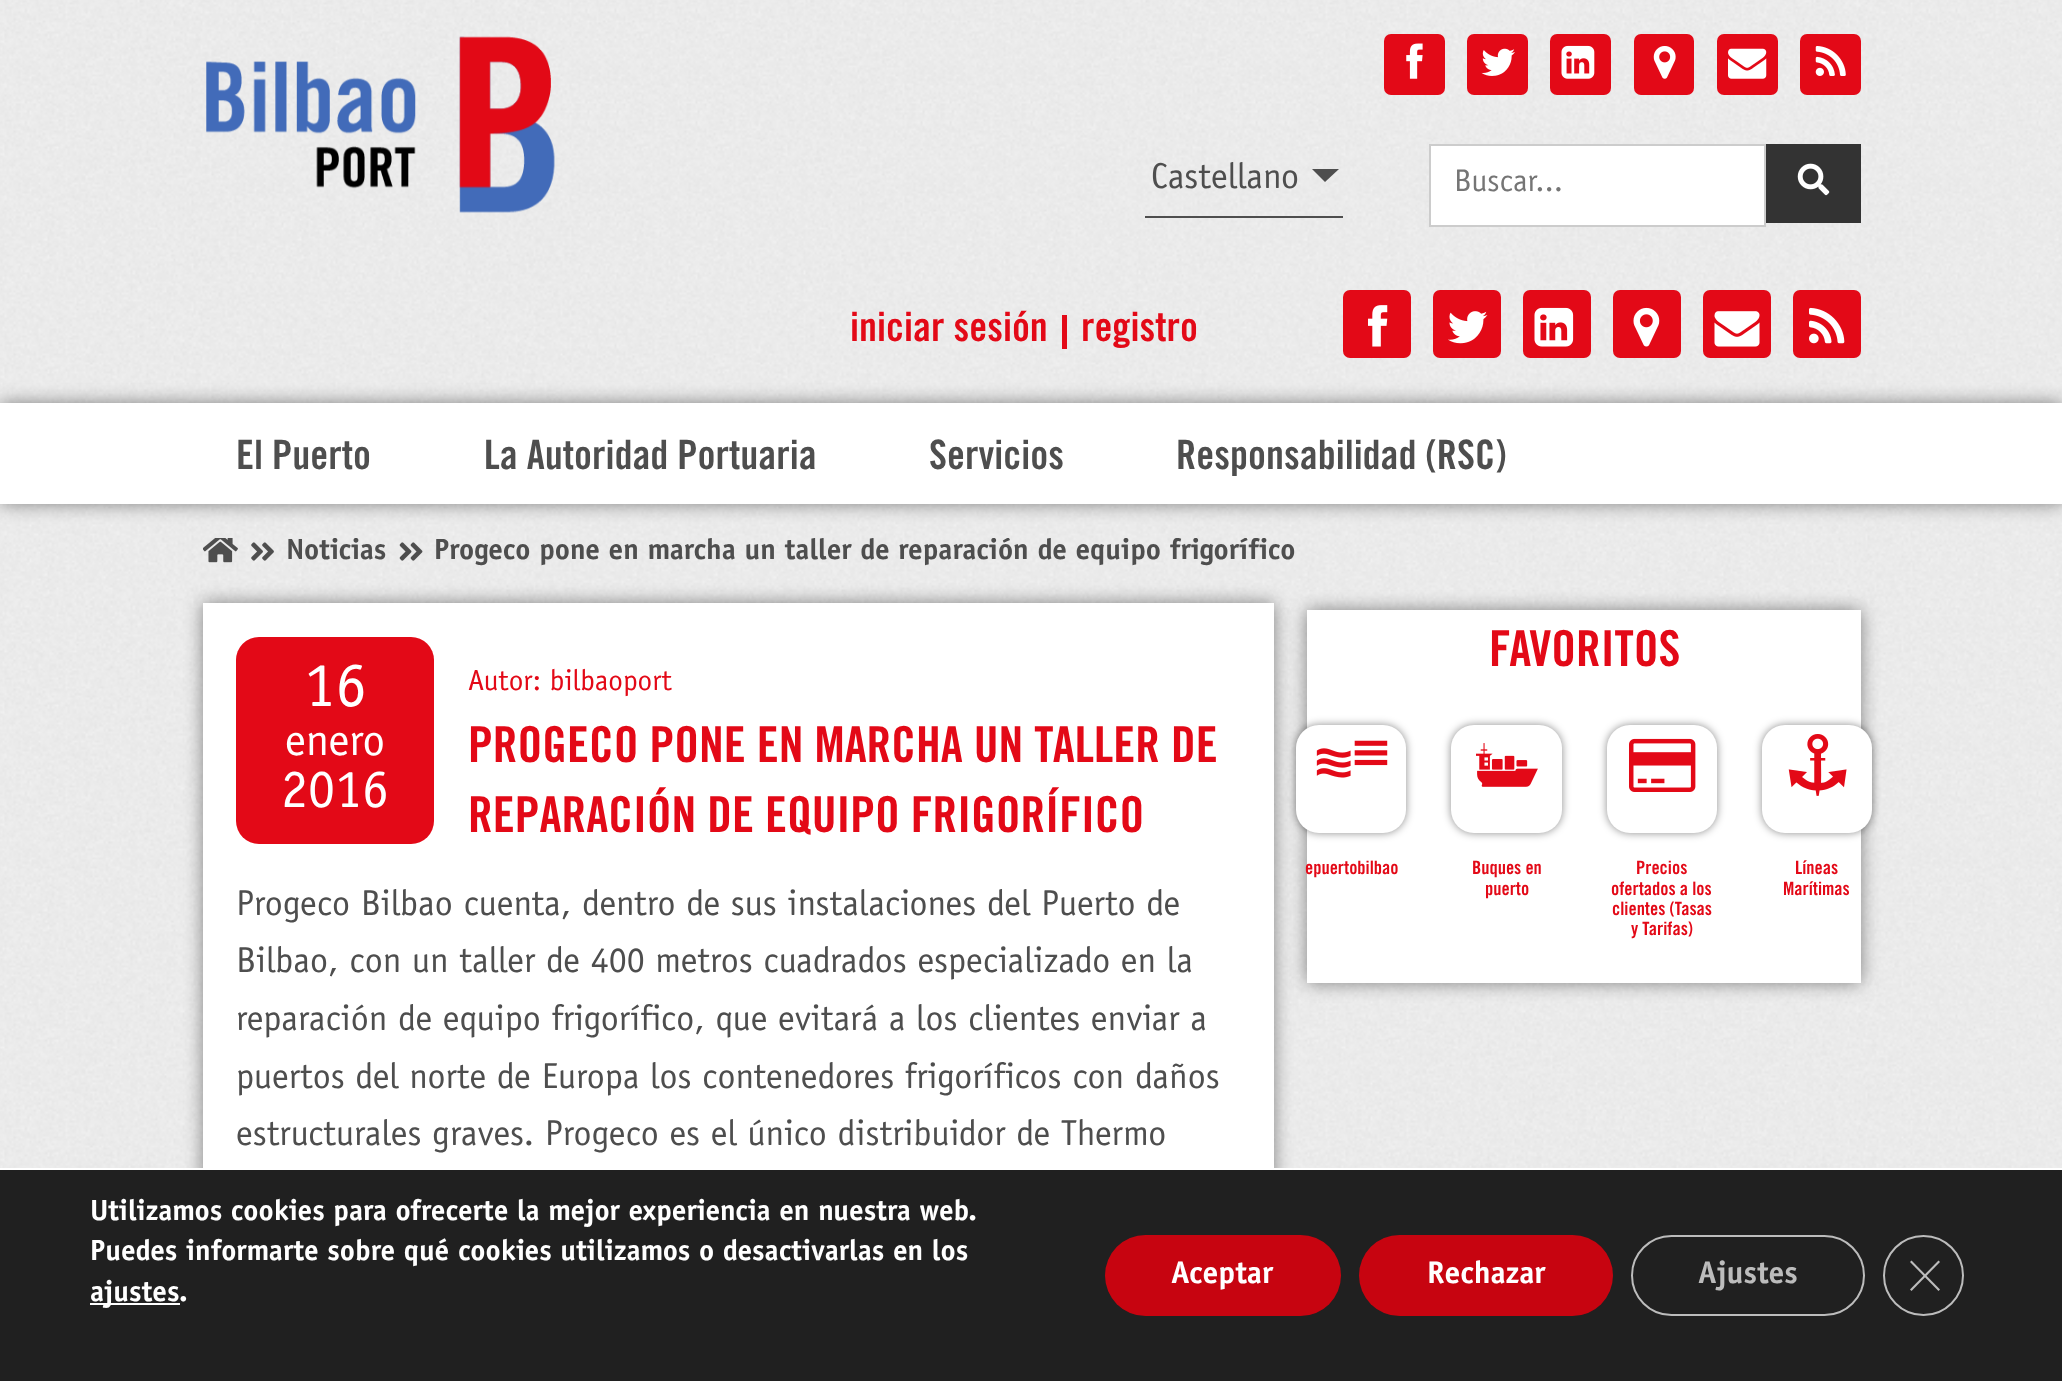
async function draw(canvas) {
  canvas.width = 2062
  canvas.height = 1381
  const ctx = canvas.getContext('2d')
  ctx.miterLimit = 4
  ctx.fontKerning = 'normal'
  async function loadImage(src) {
    const img = new Image()
    img.src = src
    await img.decode()
    return img
  }

  ctx.fillStyle = '#fff'
  ctx.fillRect(0, 0, 2062, 1381)
  ctx.drawImage(await loadImage('image0.png'), 0, 0, 2062, 1168)
  ctx.drawImage(await loadImage('image1.png'), 206, 36, 349, 177)
  ctx.fillStyle = '#e30917'
  ctx.beginPath()
  ctx.roundRect(1384, 34, 61, 61, 7)
  ctx.fill()
  ctx.drawImage(await loadImage('image2.png'), 1406, 43, 17, 36)
  ctx.beginPath()
  ctx.roundRect(1467, 34, 61, 61, 7)
  ctx.fill()
  ctx.drawImage(await loadImage('image3.png'), 1481, 48, 34, 28)
  ctx.beginPath()
  ctx.roundRect(1550, 34, 61, 61, 7)
  ctx.fill()
  ctx.drawImage(await loadImage('image4.png'), 1561, 45, 34, 34)
  ctx.beginPath()
  ctx.roundRect(1634, 34, 60, 61, 7)
  ctx.fill()
  ctx.drawImage(await loadImage('image5.png'), 1653, 46, 23, 33)
  ctx.beginPath()
  ctx.roundRect(1717, 34, 61, 61, 7)
  ctx.fill()
  ctx.drawImage(await loadImage('image6.png'), 1728, 48, 39, 31)
  ctx.beginPath()
  ctx.roundRect(1800, 34, 61, 61, 7)
  ctx.fill()
  ctx.drawImage(await loadImage('image7.png'), 1815, 46, 31, 30)
  ctx.fillStyle = '#4e4e4e'
  ctx.fillRect(1145, 216, 198, 2)
  ctx.font = '36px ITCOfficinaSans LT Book'
  ctx.fillText('Castellano', 1151, 188)
  ctx.beginPath()
  ctx.moveTo(1312, 169)
  ctx.lineTo(1339, 169)
  ctx.lineTo(1325, 182)
  ctx.closePath()
  ctx.fill()
  ctx.fillStyle = '#fff'
  ctx.beginPath()
  ctx.rect(1430, 145, 335, 81)
  ctx.fill()
  ctx.strokeStyle = '#ccc'
  ctx.lineWidth = 2
  ctx.stroke()
  ctx.font = '31.5px ITCOfficinaSans LT Book'
  ctx.fillStyle = '#757575'
  ctx.fillText('Buscar...', 1454, 191)
  ctx.fillStyle = '#333'
  ctx.fillRect(1766, 144, 95, 79)
  ctx.drawImage(await loadImage('image8.png'), 1797, 163, 33, 33)
  ctx.font = 'bold 40.5px "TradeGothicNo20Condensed"'
  ctx.fillStyle = '#e30917'
  ctx.fillText('iniciar sesión', 850, 341)
  ctx.fillRect(1062, 315, 5, 34)
  ctx.fillText('registro', 1081, 341)
  ctx.beginPath()
  ctx.roundRect(1343, 290, 68, 68, 7)
  ctx.fill()
  ctx.drawImage(await loadImage('image9.png'), 1368, 305, 20, 42)
  ctx.beginPath()
  ctx.roundRect(1433, 290, 68, 68, 7)
  ctx.fill()
  ctx.drawImage(await loadImage('image10.png'), 1448, 311, 40, 33)
  ctx.beginPath()
  ctx.roundRect(1523, 290, 68, 68, 7)
  ctx.fill()
  ctx.drawImage(await loadImage('image11.png'), 1534, 307, 40, 40)
  ctx.beginPath()
  ctx.roundRect(1613, 290, 68, 68, 7)
  ctx.fill()
  ctx.drawImage(await loadImage('image12.png'), 1633, 307, 27, 40)
  ctx.beginPath()
  ctx.roundRect(1703, 290, 68, 68, 7)
  ctx.fill()
  ctx.drawImage(await loadImage('image13.png'), 1714, 311, 46, 36)
  ctx.beginPath()
  ctx.roundRect(1793, 290, 68, 68, 7)
  ctx.fill()
  ctx.drawImage(await loadImage('image14.png'), 1809, 307, 36, 37)
  ctx.fillStyle = '#00000073'
  ctx.filter = 'blur(9px)'
  ctx.beginPath()
  ctx.rect(0, 403, 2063, 101)
  ctx.fill()
  ctx.filter = 'none'
  ctx.fillStyle = '#fff'
  ctx.fillRect(0, 403, 2062, 101)
  ctx.fillStyle = '#4e4e4e'
  ctx.fillText('El Puerto', 236, 469)
  ctx.fillText('La Autoridad Portuaria', 484, 469)
  ctx.fillText('Servicios', 929, 469)
  ctx.fillText('Responsabilidad (RSC)', 1176, 469)
  ctx.drawImage(await loadImage('image15.png'), 203, 538, 35, 25)
  ctx.drawImage(await loadImage('image16.png'), 251, 542, 23, 19)
  ctx.save()
  ctx.beginPath()
  ctx.roundRect(203, 538, 1093, 65, 7)
  ctx.clip()
  ctx.font = 'bold 29.25px ITCOfficinaSans LT Book'
  ctx.fillText('Noticias', 286, 559)
  ctx.restore()
  ctx.drawImage(await loadImage('image17.png'), 399, 542, 24, 19)
  ctx.save()
  ctx.beginPath()
  ctx.roundRect(203, 538, 1093, 65, 7)
  ctx.clip()
  ctx.font = 'bold 29.25px ITCOfficinaSans LT Book'
  ctx.fillText('Progeco pone en marcha un taller de reparación de equipo frigorífico', 434, 559)
  ctx.restore()
  ctx.fillStyle = '#00000073'
  ctx.filter = 'blur(9px)'
  ctx.beginPath()
  ctx.rect(203, 603, 1071, 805)
  ctx.fill()
  ctx.filter = 'none'
  ctx.fillStyle = '#fff'
  ctx.fillRect(203, 603, 1071, 565)
  ctx.fillStyle = '#e30917'
  ctx.beginPath()
  ctx.roundRect(236, 637, 198, 207, 23)
  ctx.fill()
  ctx.font = '63px ITCOfficinaSans LT Book'
  ctx.fillStyle = '#fff'
  ctx.fillText('16', 304, 706)
  ctx.font = '45px ITCOfficinaSans LT Book'
  ctx.fillText('enero', 285, 755)
  ctx.font = '54px ITCOfficinaSans LT Book'
  ctx.fillText('2016', 281, 807)
  ctx.font = '29.25px ITCOfficinaSans LT Book'
  ctx.fillStyle = '#e30917'
  ctx.fillText('Autor: bilbaoport', 468, 690)
  ctx.font = 'bold 49.5px "TradeGothicNo20Condensed"'
  ctx.fillText('PROGECO PONE EN MARCHA UN TALLER DE', 468, 762)
  ctx.fillText('REPARACIÓN DE EQUIPO FRIGORÍFICO', 468, 832)
  ctx.font = '36px ITCOfficinaSans LT Book'
  ctx.fillStyle = '#4e4e4e'
  ctx.fillText('Progeco Bilbao cuenta, dentro de sus instalaciones del Puerto de', 236, 915)
  ctx.fillText('Bilbao, con un taller de 400 metros cuadrados especializado en la', 236, 972)
  ctx.fillText('reparación de equipo frigorífico, que evitará a los clientes enviar a', 236, 1030)
  ctx.fillText('puertos del norte de Europa los contenedores frigoríficos con daños', 236, 1088)
  ctx.fillText('estructurales graves. Progeco es el único distribuidor de Thermo', 236, 1145)
  ctx.fillStyle = '#00000073'
  ctx.filter = 'blur(9px)'
  ctx.beginPath()
  ctx.rect(1307, 610, 554, 373)
  ctx.fill()
  ctx.filter = 'none'
  ctx.fillStyle = '#fff'
  ctx.fillRect(1307, 610, 554, 373)
  ctx.font = 'bold 49.5px "TradeGothicNo20Condensed"'
  ctx.fillStyle = '#e30917'
  ctx.fillText('FAVORITOS', 1489, 666)
  ctx.fillStyle = '#00000073'
  ctx.filter = 'blur(4.5px)'
  ctx.beginPath()
  ctx.roundRect(1296, 725, 110, 108, 23)
  ctx.fill()
  ctx.filter = 'none'
  ctx.fillStyle = '#fff'
  ctx.beginPath()
  ctx.roundRect(1296, 725, 110, 108, 23)
  ctx.fill()
  ctx.drawImage(await loadImage('image18.png'), 1316, 740, 72, 38)
  ctx.font = 'bold 18.5px "TradeGothicNo20Condensed"'
  ctx.fillStyle = '#e30917'
  ctx.fillText('epuertobilbao', 1305, 874)
  ctx.fillStyle = '#00000073'
  ctx.filter = 'blur(4.5px)'
  ctx.beginPath()
  ctx.roundRect(1451, 725, 111, 108, 23)
  ctx.fill()
  ctx.filter = 'none'
  ctx.fillStyle = '#fff'
  ctx.beginPath()
  ctx.roundRect(1451, 725, 111, 108, 23)
  ctx.fill()
  ctx.drawImage(await loadImage('image19.png'), 1476, 743, 62, 44)
  ctx.fillStyle = '#e30917'
  ctx.fillText('Buques en', 1472, 874)
  ctx.fillText('puerto', 1485, 895)
  ctx.fillStyle = '#00000073'
  ctx.filter = 'blur(4.5px)'
  ctx.beginPath()
  ctx.roundRect(1607, 725, 110, 108, 23)
  ctx.fill()
  ctx.filter = 'none'
  ctx.fillStyle = '#fff'
  ctx.beginPath()
  ctx.roundRect(1607, 725, 110, 108, 23)
  ctx.fill()
  ctx.drawImage(await loadImage('image20.png'), 1629, 738, 67, 54)
  ctx.fillStyle = '#e30917'
  ctx.fillText('Precios', 1636, 874)
  ctx.fillText('ofertados a los', 1611, 895)
  ctx.fillText('clientes (Tasas', 1612, 915)
  ctx.fillText('y Tarifas)', 1631, 935)
  ctx.fillStyle = '#00000073'
  ctx.filter = 'blur(4.5px)'
  ctx.beginPath()
  ctx.roundRect(1762, 725, 110, 108, 23)
  ctx.fill()
  ctx.filter = 'none'
  ctx.fillStyle = '#fff'
  ctx.beginPath()
  ctx.roundRect(1762, 725, 110, 108, 23)
  ctx.fill()
  ctx.drawImage(await loadImage('image21.png'), 1788, 734, 59, 62)
  ctx.fillStyle = '#e30917'
  ctx.fillText('Líneas', 1795, 874)
  ctx.fillText('Marítimas', 1783, 895)
  ctx.fillStyle = '#202020'
  ctx.fillRect(0, 1170, 2062, 211)
  ctx.fillStyle = '#fff'
  ctx.fillRect(185, 1168, 1107, 2)
  ctx.font = 'bold 29.25px ITCOfficinaSans LT Book'
  ctx.fillText('Utilizamos cookies para ofrecerte la mejor experiencia en nuestra web.', 90, 1220)
  ctx.fillText('Puedes informarte sobre qué cookies utilizamos o desactivarlas en los', 90, 1260)
  ctx.fillRect(90, 1303, 90, 2)
  ctx.fillText('ajustes', 90, 1301)
  ctx.fillText('.', 179, 1301)
  ctx.fillStyle = '#c70410'
  ctx.beginPath()
  ctx.roundRect(1105, 1235, 236, 81, 40.5)
  ctx.fill()
  ctx.font = 'bold 31.5px ITCOfficinaSans LT Book'
  ctx.fillStyle = '#fff'
  ctx.fillText('Aceptar', 1171, 1283)
  ctx.fillStyle = '#c70410'
  ctx.beginPath()
  ctx.roundRect(1359, 1235, 254, 81, 40.5)
  ctx.fill()
  ctx.fillStyle = '#fff'
  ctx.fillText('Rechazar', 1427, 1283)
  ctx.beginPath()
  ctx.roundRect(1632, 1236, 232, 79, 39.5)
  ctx.strokeStyle = '#bcbcbc'
  ctx.stroke()
  ctx.fillStyle = '#bcbcbc'
  ctx.fillText('Ajustes', 1698, 1283)
  ctx.beginPath()
  ctx.arc(1923.5, 1275.5, 39.5, 0, 2 * Math.PI)
  ctx.stroke()
  ctx.beginPath()
  ctx.moveTo(1938.5, 1260.5)
  ctx.lineTo(1940, 1262)
  ctx.lineTo(1911.5, 1291)
  ctx.lineTo(1910, 1289.5)
  ctx.closePath()
  ctx.fill()
  ctx.beginPath()
  ctx.moveTo(1910, 1262)
  ctx.lineTo(1911.5, 1260.5)
  ctx.lineTo(1940, 1289.5)
  ctx.lineTo(1938.5, 1291)
  ctx.closePath()
  ctx.fill()
}

draw(document.querySelector('canvas'))
